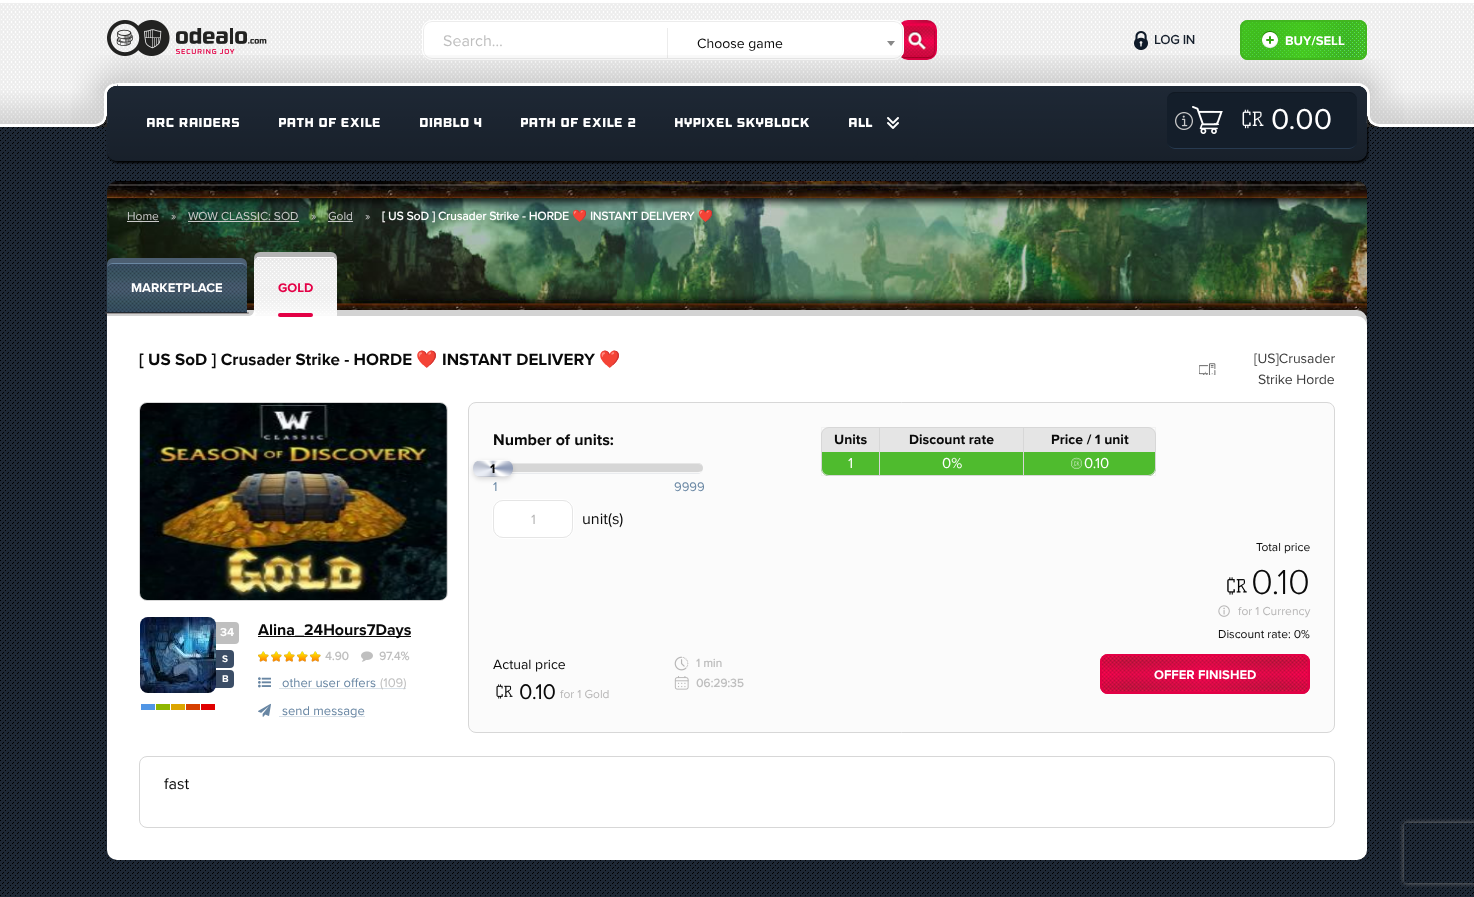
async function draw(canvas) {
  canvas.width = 1474
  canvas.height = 897
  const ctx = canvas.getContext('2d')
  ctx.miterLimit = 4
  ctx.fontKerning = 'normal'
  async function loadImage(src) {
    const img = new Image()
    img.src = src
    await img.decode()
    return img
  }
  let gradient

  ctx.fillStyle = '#1e2835'
  ctx.fillRect(0, 0, 1474, 897)
  ctx.drawImage(await loadImage('image0.png'), 0, 127, 1474, 769)
  ctx.drawImage(await loadImage('image1.png'), 0, 3, 1474, 124)
  ctx.fillStyle = '#fff'
  ctx.fillRect(0, 0, 1474, 3)
  ctx.drawImage(await loadImage('image2.png'), 107, 20, 160, 36)
  ctx.drawImage(await loadImage('image3.png'), 901, 20, 36, 40)
  ctx.beginPath()
  ctx.roundRect(422, 20, 482, 40, 10)
  ctx.fill()
  ctx.beginPath()
  ctx.roundRect(423.5, 21.5, 479, 37, 8.5)
  ctx.strokeStyle = '#ececec'
  ctx.stroke()
  ctx.beginPath()
  ctx.roundRect(422.5, 20.5, 481, 39, 9.5)
  ctx.strokeStyle = '#fff'
  ctx.stroke()
  ctx.font = '16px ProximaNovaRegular'
  ctx.fillStyle = '#bfbfbf'
  ctx.fillText('Search…', 443, 46)
  ctx.fillStyle = '#ececec'
  ctx.fillRect(667, 28, 1, 30)
  ctx.font = '14px ProximaNovaRegular'
  ctx.fillStyle = '#0a0a0a'
  ctx.fillText('Choose game', 697, 48)
  ctx.fillStyle = '#888'
  ctx.beginPath()
  ctx.moveTo(887, 41)
  ctx.lineTo(895, 41)
  ctx.lineTo(891, 46)
  ctx.closePath()
  ctx.fill()
  ctx.drawImage(await loadImage('image4.png'), 1134, 31, 14, 19)
  ctx.font = 'bold 13px ProximaNovaRegular'
  ctx.fillStyle = '#151f2c'
  ctx.fillText('LOG IN', 1154, 44)
  ctx.fillStyle = '#000'
  ctx.filter = 'blur(1px)'
  ctx.beginPath()
  ctx.roundRect(108, 85, 1260, 78, 10)
  ctx.fill()
  ctx.filter = 'none'
  ctx.fillStyle = '#1e2835'
  ctx.beginPath()
  ctx.roundRect(107, 83, 1260, 78, 10)
  ctx.fill()
  ctx.fillStyle = '#fff'
  ctx.fillRect(112, 83, 1250, 3)
  gradient = ctx.createLinearGradient(737, 161, 737, 86)
  gradient.addColorStop(0, '#00000033')
  gradient.addColorStop(1, '#00000000')
  ctx.fillStyle = gradient
  ctx.beginPath()
  ctx.roundRect(107, 86, 1260, 75, [0, 0, 10, 10])
  ctx.fill()
  ctx.fillStyle = '#1e2835'
  ctx.beginPath()
  ctx.roundRect(107, 83, 811, 78, 10)
  ctx.fill()
  gradient = ctx.createLinearGradient(513, 161, 513, 83)
  gradient.addColorStop(0, '#00000033')
  gradient.addColorStop(1, '#00000000')
  ctx.fillStyle = gradient
  ctx.beginPath()
  ctx.roundRect(107, 83, 811, 78, 10)
  ctx.fill()
  ctx.drawImage(await loadImage('image8.png'), 173, 55, 1128, 31)
  ctx.fillStyle = '#141e2a'
  ctx.beginPath()
  ctx.roundRect(1167, 92, 190, 57, 8)
  ctx.fill()
  ctx.fillStyle = '#111923'
  ctx.beginPath()
  ctx.moveTo(1175, 92)
  ctx.bezierCurveTo(1171, 92, 1167, 96, 1167, 100)
  ctx.bezierCurveTo(1167, 96, 1171, 93, 1175, 93)
  ctx.lineTo(1349, 93)
  ctx.bezierCurveTo(1353, 93, 1357, 96, 1357, 100)
  ctx.bezierCurveTo(1357, 96, 1353, 92, 1349, 92)
  ctx.closePath()
  ctx.fill()
  ctx.font = '30px ProximaNovaRegular'
  ctx.fillStyle = '#fff'
  ctx.fillText('0.00', 1271, 129)
  ctx.drawImage(await loadImage('image9.png'), 1301, 59, 103, 68)
  ctx.drawImage(await loadImage('image5.png'), 1240, 20, 127, 40)
  ctx.beginPath()
  ctx.roundRect(1241, 21, 125, 38, 7)
  ctx.strokeStyle = '#41b61f'
  ctx.lineWidth = 2
  ctx.stroke()
  ctx.drawImage(await loadImage('image6.png'), 1262, 31, 16, 17)
  ctx.font = '13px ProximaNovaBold'
  ctx.fillText('BUY/SELL', 1285, 45)
  ctx.drawImage(await loadImage('image7.png'), 71, 55, 102, 72)
  ctx.font = '13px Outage'
  ctx.fillText('ARC RAIDERS', 146, 127)
  ctx.fillText('PATH OF EXILE', 278, 127)
  ctx.fillText('DIABLO 4', 419, 127)
  ctx.fillText('PATH OF EXILE 2', 520, 127)
  ctx.fillText('HYPIXEL SKYBLOCK', 674, 127)
  ctx.fillText('ALL', 848, 127)
  ctx.drawImage(await loadImage('image10.png'), 887, 117, 12, 12)
  ctx.fillStyle = '#273a50'
  ctx.beginPath()
  ctx.moveTo(1349, 149)
  ctx.bezierCurveTo(1353, 149, 1357, 145, 1357, 141)
  ctx.bezierCurveTo(1357, 145, 1353, 148, 1349, 148)
  ctx.lineTo(1175, 148)
  ctx.bezierCurveTo(1171, 148, 1167, 145, 1167, 141)
  ctx.bezierCurveTo(1167, 145, 1171, 149, 1175, 149)
  ctx.closePath()
  ctx.fill()
  ctx.drawImage(await loadImage('image12.png'), 1192, 106, 31, 28)
  ctx.drawImage(await loadImage('image11.png'), 1175, 112, 18, 18)
  ctx.drawImage(await loadImage('image13.png'), 1242, 109, 22, 20)
  ctx.drawImage(await loadImage('image17.png'), 107, 181, 1260, 136)
  ctx.font = '12px ProximaNovaRegular'
  ctx.fillStyle = '#cacaca'
  ctx.fillText('Home', 127, 220)
  ctx.fillRect(127, 221, 32, 1)
  ctx.fillText('»', 171, 220)
  ctx.fillText('WOW CLASSIC: SOD', 188, 220)
  ctx.fillRect(188, 221, 111, 1)
  ctx.fillText('»', 311, 220)
  ctx.fillText('Gold', 328, 220)
  ctx.fillRect(328, 221, 25, 1)
  ctx.fillText('»', 365, 220)
  ctx.font = 'bold 12px ProximaNovaRegular'
  ctx.fillStyle = '#fff'
  ctx.fillText('[ US SoD ] Crusader Strike - HORDE', 382, 220)
  ctx.font = 'bold 12px Noto Color Emoji'
  ctx.fillText('❤️', 572, 220)
  ctx.font = 'bold 12px ProximaNovaRegular'
  ctx.fillText('INSTANT DELIVERY', 590, 220)
  ctx.font = 'bold 12px Noto Color Emoji'
  ctx.fillText('❤️', 698, 220)
  ctx.fillStyle = '#4c5e71'
  ctx.beginPath()
  ctx.roundRect(107, 258, 140, 11, [6, 6, 0, 0])
  ctx.fill()
  ctx.fillStyle = '#d3d3d3'
  ctx.beginPath()
  ctx.roundRect(107, 310, 1260, 45, [0, 10, 0, 0])
  ctx.fill()
  ctx.drawImage(await loadImage('image14.png'), 107, 264, 140, 48)
  ctx.fillStyle = '#6b88a3'
  ctx.beginPath()
  ctx.moveTo(113, 263)
  ctx.bezierCurveTo(110, 263, 107, 266, 107, 269)
  ctx.bezierCurveTo(107, 266, 110, 264, 113, 264)
  ctx.lineTo(241, 264)
  ctx.bezierCurveTo(244, 264, 247, 266, 247, 269)
  ctx.bezierCurveTo(247, 266, 244, 263, 241, 263)
  ctx.closePath()
  ctx.fill()
  ctx.fillStyle = '#61565480'
  ctx.beginPath()
  ctx.roundRect(105, 312, 144, 2, 1)
  ctx.fill()
  ctx.fillStyle = '#222b33'
  ctx.fillRect(107, 312, 140, 1)
  ctx.font = '13px ProximaNovaBold'
  ctx.fillStyle = '#fff'
  ctx.fillText('MARKETPLACE', 131, 292)
  ctx.fillStyle = '#b5b5b5'
  ctx.beginPath()
  ctx.roundRect(254, 252, 83, 11, [6, 6, 0, 0])
  ctx.fill()
  ctx.fillStyle = '#fff'
  ctx.beginPath()
  ctx.roundRect(107, 316, 1260, 544, [0, 10, 10, 10])
  ctx.fill()
  ctx.beginPath()
  ctx.roundRect(254, 257, 83, 60, [6, 6, 0, 0])
  ctx.fill()
  ctx.drawImage(await loadImage('image15.png'), 254, 258, 83, 58)
  ctx.fillRect(257, 257, 77, 1)
  ctx.fillStyle = '#e40046'
  ctx.fillText('GOLD', 278, 292)
  ctx.fillStyle = '#e30045'
  ctx.beginPath()
  ctx.roundRect(278, 313, 35, 4, 2)
  ctx.fill()
  ctx.drawImage(await loadImage('image16.png'), 249, 311, 7, 5)
  ctx.font = '17px ProximaNovaBold'
  ctx.fillStyle = '#0a0a0a'
  ctx.fillText('[ US SoD ] Crusader Strike - HORDE', 139, 365)
  ctx.font = '17px Noto Color Emoji'
  ctx.fillText('❤️', 416, 365)
  ctx.font = '17px ProximaNovaBold'
  ctx.fillText('INSTANT DELIVERY', 442, 365)
  ctx.font = '17px Noto Color Emoji'
  ctx.fillText('❤️', 599, 365)
  ctx.drawImage(await loadImage('image18.png'), 1199, 363, 17, 12)
  ctx.font = '14px ProximaNovaRegular'
  ctx.fillStyle = '#3b3b3b'
  ctx.fillText('[US]Crusader', 1254, 363)
  ctx.fillText('Strike Horde', 1258, 384)
  ctx.beginPath()
  ctx.roundRect(139.5, 402.5, 308, 198, 7.5)
  ctx.strokeStyle = '#d7d7d7'
  ctx.lineWidth = 1
  ctx.stroke()
  ctx.drawImage(await loadImage('image19.png'), 140, 403, 307, 197)
  ctx.fillStyle = '#bfbfbf'
  ctx.beginPath()
  ctx.roundRect(211, 622, 28, 22, [0, 4, 4, 0])
  ctx.fill()
  ctx.fillStyle = '#3b4d66'
  ctx.beginPath()
  ctx.roundRect(211, 650, 23, 18, [0, 4, 4, 0])
  ctx.fill()
  ctx.beginPath()
  ctx.roundRect(211, 670, 23, 18, [0, 4, 4, 0])
  ctx.fill()
  ctx.drawImage(await loadImage('image20.png'), 140, 617, 76, 76)
  ctx.font = '12px ProximaNovaBold'
  ctx.fillStyle = '#fff'
  ctx.fillText('34', 220, 636)
  ctx.font = '10px ProximaNovaBold'
  ctx.fillText('S', 222, 662)
  ctx.fillText('B', 222, 682)
  ctx.fillStyle = '#5196e5'
  ctx.fillRect(141, 704, 14, 6)
  ctx.fillStyle = '#8fb600'
  ctx.fillRect(156, 704, 14, 6)
  ctx.fillStyle = '#dca500'
  ctx.fillRect(171, 704, 14, 6)
  ctx.fillStyle = '#d63f00'
  ctx.fillRect(186, 704, 14, 6)
  ctx.fillStyle = '#e00000'
  ctx.fillRect(201, 704, 14, 6)
  ctx.fillStyle = '#0a0a0a'
  ctx.fillRect(258, 636, 153, 1)
  ctx.font = '16px ProximaNovaBold'
  ctx.fillText('Alina_24Hours7Days', 258, 635)
  ctx.drawImage(await loadImage('image21.png'), 258, 651, 11, 11)
  ctx.drawImage(await loadImage('image21.png'), 271, 651, 11, 11)
  ctx.drawImage(await loadImage('image21.png'), 284, 651, 11, 11)
  ctx.drawImage(await loadImage('image21.png'), 297, 651, 11, 11)
  ctx.drawImage(await loadImage('image21.png'), 310, 651, 11, 11)
  ctx.font = 'bold 12px ProximaNovaRegular'
  ctx.fillStyle = '#bfbfbf'
  ctx.fillText('4.90', 325, 660)
  ctx.drawImage(await loadImage('image22.png'), 361, 651, 12, 11)
  ctx.fillText('97.4%', 379, 660)
  ctx.drawImage(await loadImage('image23.png'), 258, 677, 13, 11)
  ctx.font = '13px ProximaNovaRegular'
  ctx.fillStyle = '#6886a3'
  ctx.fillText('other user offers', 282, 687)
  ctx.fillStyle = '#d9e1e8'
  ctx.fillRect(279, 688, 127, 1)
  ctx.fillStyle = '#bfbfbf'
  ctx.fillText('(109)', 380, 687)
  ctx.drawImage(await loadImage('image24.png'), 258, 703, 13, 14)
  ctx.fillStyle = '#d9e1e8'
  ctx.fillRect(279, 716, 86, 1)
  ctx.fillStyle = '#6886a3'
  ctx.fillText('send message', 282, 715)
  ctx.fillStyle = '#fbfbfb'
  ctx.beginPath()
  ctx.roundRect(468.5, 402.5, 866, 330, 7.5)
  ctx.fill()
  ctx.stroke()
  ctx.font = '16px ProximaNovaBold'
  ctx.fillStyle = '#0a0a0a'
  ctx.fillText('Number of units:', 493, 445)
  ctx.fillStyle = '#e9ebee'
  ctx.beginPath()
  ctx.moveTo(493, 468)
  ctx.bezierCurveTo(493, 470, 493, 471, 494, 473)
  ctx.lineTo(497, 474)
  ctx.lineTo(698, 474)
  ctx.bezierCurveTo(700, 474, 702, 472, 703, 470)
  ctx.lineTo(703, 468)
  ctx.bezierCurveTo(703, 471, 701, 473, 698, 473)
  ctx.lineTo(498, 473)
  ctx.bezierCurveTo(495, 473, 493, 471, 493, 468)
  ctx.closePath()
  ctx.fill()
  ctx.fillStyle = '#d6d6d6'
  ctx.beginPath()
  ctx.roundRect(493, 463, 210, 10, 5)
  ctx.fill()
  ctx.fillStyle = '#ffffff66'
  ctx.beginPath()
  ctx.moveTo(703, 468)
  ctx.lineTo(702, 466)
  ctx.closePath()
  ctx.moveTo(498, 463)
  ctx.bezierCurveTo(495, 463, 494, 466, 494, 468)
  ctx.bezierCurveTo(494, 466, 495, 464, 498, 464)
  ctx.lineTo(698, 464)
  ctx.bezierCurveTo(700, 464, 701, 465, 702, 466)
  ctx.bezierCurveTo(701, 464, 700, 463, 698, 463)
  ctx.closePath()
  ctx.fill('evenodd')
  ctx.fillStyle = '#ffffffcc'
  ctx.beginPath()
  ctx.moveTo(498, 473)
  ctx.lineTo(700, 473)
  ctx.bezierCurveTo(701, 472, 702, 471, 703, 470)
  ctx.lineTo(703, 468)
  ctx.lineTo(703, 470)
  ctx.bezierCurveTo(702, 471, 700, 472, 698, 472)
  ctx.lineTo(498, 472)
  ctx.bezierCurveTo(495, 472, 494, 470, 494, 468)
  ctx.bezierCurveTo(494, 470, 495, 473, 498, 473)
  ctx.closePath()
  ctx.fill()
  ctx.fillStyle = '#00000024'
  ctx.filter = 'blur(2.5px)'
  ctx.beginPath()
  ctx.roundRect(473, 462, 40, 17, 8)
  ctx.fill()
  ctx.filter = 'none'
  ctx.drawImage(await loadImage('image25.png'), 473, 460, 40, 17)
  ctx.font = '13px ProximaNovaBold'
  ctx.fillStyle = '#0a0a0a'
  ctx.fillText('1', 490, 473)
  ctx.font = '13px ProximaNovaRegular'
  ctx.fillStyle = '#6886a3'
  ctx.fillText('1', 493, 491)
  ctx.fillText('9999', 674, 491)
  ctx.beginPath()
  ctx.roundRect(492.5, 499.5, 81, 39, 10.5)
  ctx.strokeStyle = '#fff'
  ctx.stroke()
  ctx.fillStyle = '#fff'
  ctx.beginPath()
  ctx.roundRect(493.5, 500.5, 79, 37, 9.5)
  ctx.fill()
  ctx.strokeStyle = '#e5e5e5'
  ctx.stroke()
  ctx.font = '14px ProximaNovaRegular'
  ctx.fillStyle = '#b7b6b6'
  ctx.fillText('1', 531, 524)
  ctx.font = '16px ProximaNovaRegular'
  ctx.fillStyle = '#0a0a0a'
  ctx.fillText('unit(s)', 582, 524)
  ctx.strokeStyle = '#f2f2f2'
  ctx.strokeRect(821.5, 427.5, 334, 24)
  ctx.fillStyle = '#e5e5e5'
  ctx.beginPath()
  ctx.roundRect(821, 427, 59, 25, [8, 0, 0, 0])
  ctx.fill()
  ctx.fillStyle = '#d7d7d7'
  ctx.beginPath()
  ctx.moveTo(829, 427)
  ctx.lineTo(880, 427)
  ctx.lineTo(880, 452)
  ctx.lineTo(821, 452)
  ctx.lineTo(821, 435)
  ctx.bezierCurveTo(821, 431, 825, 427, 829, 427)
  ctx.closePath()
  ctx.moveTo(829, 428)
  ctx.lineTo(879, 428)
  ctx.lineTo(879, 452)
  ctx.lineTo(822, 452)
  ctx.lineTo(822, 435)
  ctx.bezierCurveTo(822, 431, 825, 428, 829, 428)
  ctx.closePath()
  ctx.fill('evenodd')
  ctx.font = '14px ProximaNovaBold'
  ctx.fillStyle = '#0a0a0a'
  ctx.fillText('Units', 834, 444)
  ctx.fillStyle = '#e5e5e5'
  ctx.fillRect(880, 428, 143, 24)
  ctx.fillStyle = '#d7d7d7'
  ctx.fillRect(880, 427, 144, 1)
  ctx.fillRect(1023, 427, 1, 25)
  ctx.fillStyle = '#0a0a0a'
  ctx.fillText('Discount rate', 909, 444)
  ctx.fillStyle = '#e5e5e5'
  ctx.beginPath()
  ctx.roundRect(1024, 427, 132, 25, [0, 8, 0, 0])
  ctx.fill()
  ctx.fillStyle = '#d7d7d7'
  ctx.beginPath()
  ctx.moveTo(1024, 427)
  ctx.lineTo(1148, 427)
  ctx.bezierCurveTo(1152, 427, 1156, 431, 1156, 435)
  ctx.lineTo(1156, 452)
  ctx.lineTo(1024, 452)
  ctx.closePath()
  ctx.moveTo(1024, 428)
  ctx.lineTo(1148, 428)
  ctx.bezierCurveTo(1152, 428, 1155, 431, 1155, 435)
  ctx.lineTo(1155, 452)
  ctx.lineTo(1024, 452)
  ctx.closePath()
  ctx.fill('evenodd')
  ctx.fillStyle = '#0a0a0a'
  ctx.fillText('Price / 1 unit', 1051, 444)
  ctx.fillStyle = '#fff'
  ctx.fillRect(822, 471, 333, 4)
  ctx.strokeRect(821.5, 452.5, 334, 23)
  ctx.fillStyle = '#4fbb2e'
  ctx.beginPath()
  ctx.roundRect(821, 452, 59, 24, [0, 0, 0, 8])
  ctx.fill()
  ctx.fillStyle = '#d7d7d7'
  ctx.beginPath()
  ctx.moveTo(821, 452)
  ctx.lineTo(880, 452)
  ctx.lineTo(880, 476)
  ctx.lineTo(829, 476)
  ctx.bezierCurveTo(825, 476, 821, 472, 821, 468)
  ctx.closePath()
  ctx.moveTo(822, 452)
  ctx.lineTo(879, 452)
  ctx.lineTo(879, 475)
  ctx.lineTo(829, 475)
  ctx.bezierCurveTo(825, 475, 822, 472, 822, 468)
  ctx.closePath()
  ctx.fill('evenodd')
  ctx.font = '15px ProximaNovaRegular'
  ctx.fillStyle = '#fff'
  ctx.fillText('1', 848, 468)
  ctx.fillStyle = '#4fbb2e'
  ctx.fillRect(880, 452, 143, 23)
  ctx.fillStyle = '#d7d7d7'
  ctx.fillRect(1023, 452, 1, 24)
  ctx.fillRect(880, 475, 144, 1)
  ctx.fillStyle = '#fff'
  ctx.fillText('0%', 942, 468)
  ctx.fillStyle = '#4fbb2e'
  ctx.beginPath()
  ctx.roundRect(1024, 452, 132, 24, [0, 0, 8, 0])
  ctx.fill()
  ctx.fillStyle = '#d7d7d7'
  ctx.beginPath()
  ctx.moveTo(1024, 452)
  ctx.lineTo(1156, 452)
  ctx.lineTo(1156, 468)
  ctx.bezierCurveTo(1156, 472, 1152, 476, 1148, 476)
  ctx.lineTo(1024, 476)
  ctx.closePath()
  ctx.moveTo(1024, 452)
  ctx.lineTo(1155, 452)
  ctx.lineTo(1155, 468)
  ctx.bezierCurveTo(1155, 472, 1152, 475, 1148, 475)
  ctx.lineTo(1024, 475)
  ctx.closePath()
  ctx.fill('evenodd')
  ctx.drawImage(await loadImage('image26.png'), 1070, 457, 13, 12)
  ctx.fillStyle = '#fff'
  ctx.fillText('0.10', 1084, 468)
  ctx.font = '12px ProximaNovaRegular'
  ctx.fillStyle = '#0a0a0a'
  ctx.fillText('Total price', 1256, 551)
  ctx.drawImage(await loadImage('image27.png'), 1227, 577, 20, 18)
  ctx.font = '36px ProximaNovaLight'
  ctx.fillText('0.10', 1251, 594)
  ctx.drawImage(await loadImage('image28.png'), 1218, 605, 12, 12)
  ctx.font = '12px ProximaNovaRegular'
  ctx.fillStyle = '#b7b6b6'
  ctx.fillText('for 1 Currency', 1238, 615)
  ctx.fillStyle = '#0a0a0a'
  ctx.fillText('Discount rate: 0%', 1218, 638)
  ctx.font = '14px ProximaNovaRegular'
  ctx.fillText('Actual price', 493, 669)
  ctx.drawImage(await loadImage('image29.png'), 496, 684, 17, 15)
  ctx.font = '22px ProximaNovaRegular'
  ctx.fillText('0.10', 519, 699)
  ctx.font = '12px ProximaNovaRegular'
  ctx.fillStyle = '#b7b6b6'
  ctx.fillText('for 1 Gold', 560, 698)
  ctx.drawImage(await loadImage('image30.png'), 674, 656, 15, 15)
  ctx.font = 'bold 12px ProximaNovaRegular'
  ctx.fillStyle = '#bfbfbf'
  ctx.fillText('1 min', 696, 667)
  ctx.drawImage(await loadImage('image31.png'), 674, 676, 15, 14)
  ctx.fillText('06:29:35', 696, 687)
  ctx.drawImage(await loadImage('image32.png'), 1100, 654, 210, 40)
  ctx.beginPath()
  ctx.roundRect(1101, 655, 208, 38, 7)
  ctx.strokeStyle = '#e20045'
  ctx.lineWidth = 2
  ctx.stroke()
  ctx.font = '13px ProximaNovaBold'
  ctx.fillStyle = '#fff'
  ctx.fillText('OFFER FINISHED', 1154, 679)
  ctx.beginPath()
  ctx.roundRect(139.5, 756.5, 1195, 71, 7.5)
  ctx.strokeStyle = '#d7d7d7'
  ctx.lineWidth = 1
  ctx.stroke()
  ctx.font = '16px ProximaNovaRegular'
  ctx.fillStyle = '#0a0a0a'
  ctx.fillText('fast', 164, 789)
  ctx.save()
  ctx.beginPath()
  ctx.moveTo(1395, 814)
  ctx.lineTo(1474, 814)
  ctx.lineTo(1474, 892)
  ctx.lineTo(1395, 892)
  ctx.closePath()
  ctx.moveTo(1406, 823)
  ctx.lineTo(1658, 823)
  ctx.bezierCurveTo(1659, 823, 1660, 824, 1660, 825)
  ctx.lineTo(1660, 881)
  ctx.bezierCurveTo(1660, 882, 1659, 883, 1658, 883)
  ctx.lineTo(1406, 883)
  ctx.bezierCurveTo(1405, 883, 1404, 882, 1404, 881)
  ctx.lineTo(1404, 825)
  ctx.bezierCurveTo(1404, 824, 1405, 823, 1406, 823)
  ctx.closePath()
  ctx.clip('evenodd')
  ctx.fillStyle = '#808080'
  ctx.filter = 'blur(2.5px)'
  ctx.beginPath()
  ctx.roundRect(1404, 823, 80, 60, 2)
  ctx.fill()
  ctx.filter = 'none'
  ctx.restore()
}

draw(document.querySelector('canvas'))
